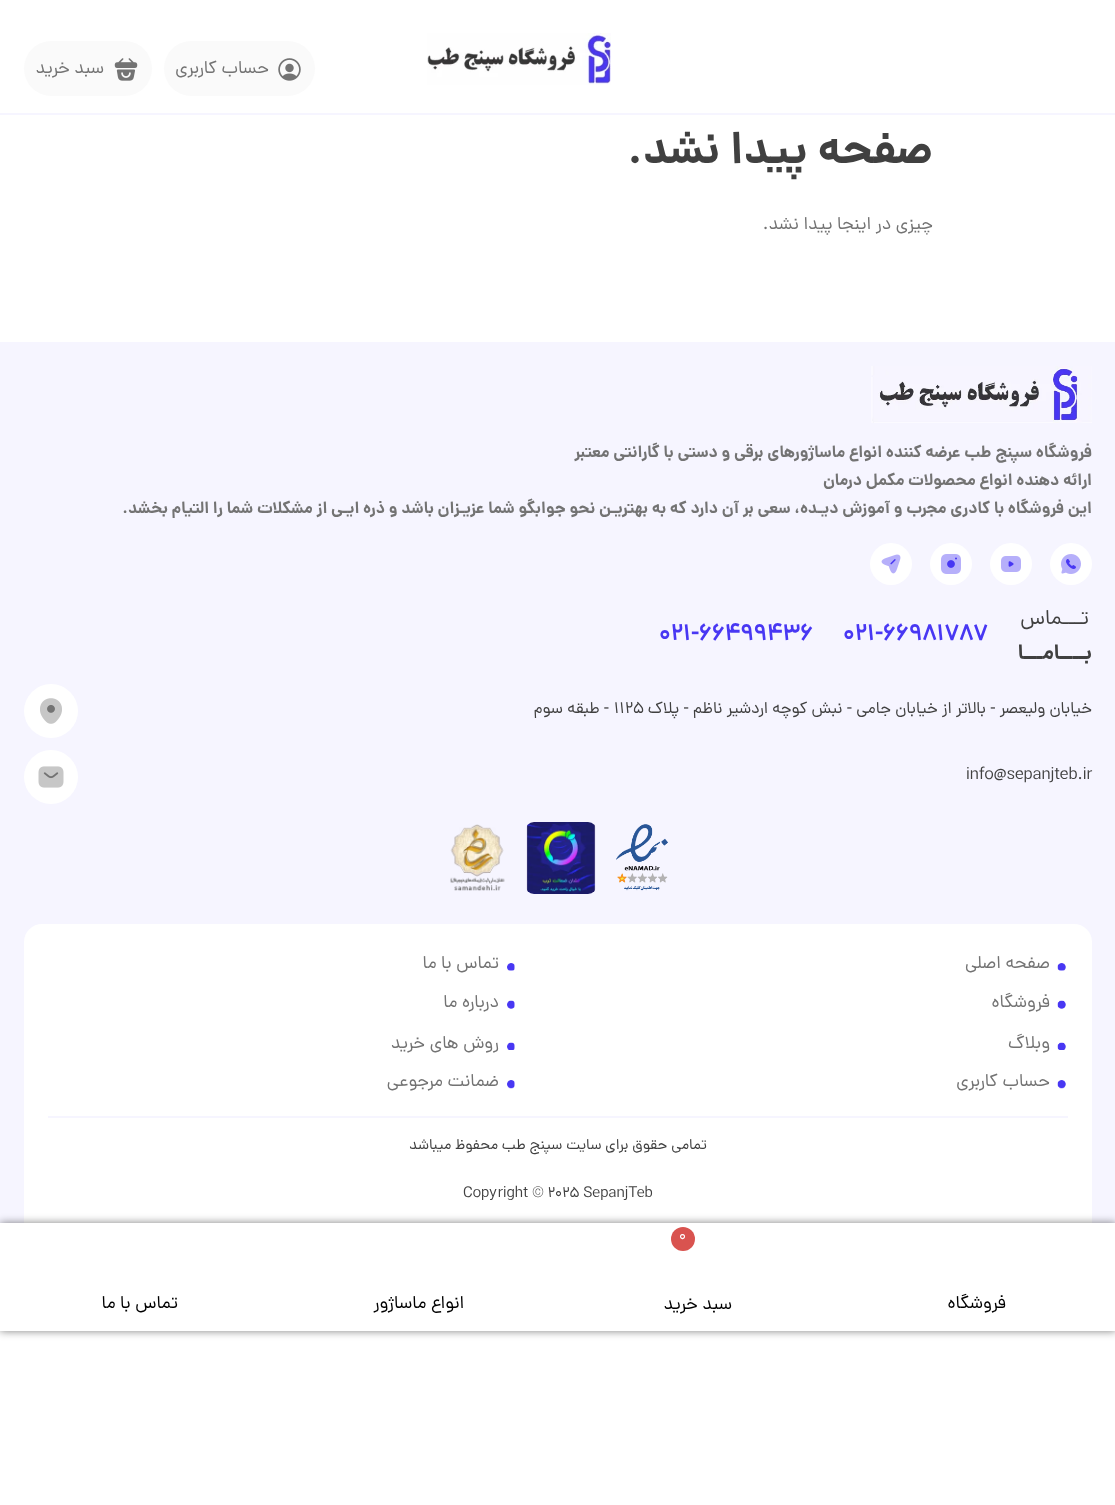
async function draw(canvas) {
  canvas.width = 1115
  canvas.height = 1505
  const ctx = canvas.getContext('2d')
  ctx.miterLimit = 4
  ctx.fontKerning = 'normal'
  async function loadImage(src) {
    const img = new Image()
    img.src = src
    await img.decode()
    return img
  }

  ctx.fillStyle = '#fff'
  ctx.fillRect(0, 0, 1115, 1505)
  ctx.fillStyle = '#f6f5ff'
  ctx.fillRect(0, 113, 1115, 2)
  ctx.drawImage(await loadImage('image0.png'), 427, 33, 184, 52)
  ctx.fillStyle = '#fafafa'
  ctx.beginPath()
  ctx.roundRect(164, 41, 151, 55, 27.5)
  ctx.fill()
  ctx.drawImage(await loadImage('image1.png'), 278, 58, 23, 23)
  ctx.direction = 'rtl'
  ctx.font = '18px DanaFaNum'
  ctx.fillStyle = '#737373'
  ctx.fillText('حساب کاربری', 269, 73)
  ctx.fillStyle = '#fafafa'
  ctx.beginPath()
  ctx.roundRect(24, 41, 128, 55, 27.5)
  ctx.fill()
  ctx.drawImage(await loadImage('image2.png'), 114, 58, 24, 23)
  ctx.fillStyle = '#737373'
  ctx.fillText('سبد خرید', 104, 73)
  ctx.font = 'bold 45px DanaFaNum'
  ctx.fillStyle = '#404040'
  ctx.fillText('صفحه پیدا نشد.', 933, 163)
  ctx.font = '18px DanaFaNum'
  ctx.fillStyle = '#737373'
  ctx.fillText('چیزی در اینجا پیدا نشد.', 933, 229)
  ctx.fillStyle = '#f6f5ff'
  ctx.fillRect(0, 342, 1115, 881)
  ctx.drawImage(await loadImage('image3.png'), 871, 366, 221, 57)
  ctx.font = 'bold 16.5px DanaFaNum'
  ctx.fillStyle = '#737373'
  ctx.fillText('فروشگاه سپنج طب عرضه کننده انواع ماساژورهای برقی و دستی با گارانتی معتبر', 1092, 457)
  ctx.fillText('ارائه دهنده انواع محصولات مکمل درمان', 1092, 485)
  ctx.fillText('این فروشگاه با کادری مجرب و آموزش دیـده، سعی بر آن دارد که به بهتریـن نحو جوابگو شما عزیـزان باشد و ذره ایـی از مشکلات شما را التیام بخشد.', 1092, 513)
  ctx.fillStyle = '#fff'
  ctx.beginPath()
  ctx.arc(1071, 564, 21, 0, 2 * Math.PI)
  ctx.fill()
  ctx.drawImage(await loadImage('image4.png'), 1061, 554, 20, 20)
  ctx.beginPath()
  ctx.arc(1011, 564, 21, 0, 2 * Math.PI)
  ctx.fill()
  ctx.drawImage(await loadImage('image5.png'), 1001, 556, 20, 16)
  ctx.beginPath()
  ctx.arc(951, 564, 21, 0, 2 * Math.PI)
  ctx.fill()
  ctx.drawImage(await loadImage('image6.png'), 941, 554, 20, 20)
  ctx.beginPath()
  ctx.arc(891, 564, 21, 0, 2 * Math.PI)
  ctx.fill()
  ctx.drawImage(await loadImage('image7.png'), 881, 554, 20, 20)
  ctx.font = '21px DanaFaNum'
  ctx.fillStyle = '#404040'
  ctx.fillText('تـــماس', 1089, 624)
  ctx.font = 'bold 21px DanaFaNum'
  ctx.fillText('بــــامـــا', 1092, 659)
  ctx.direction = 'ltr'
  ctx.font = '600 24px DanaFaNum'
  ctx.fillStyle = '#4837f3'
  ctx.fillText('021-66981787', 843, 640)
  ctx.fillText('021-66499436', 659, 640)
  ctx.direction = 'rtl'
  ctx.font = '16.5px DanaFaNum'
  ctx.fillStyle = '#404040'
  ctx.fillText('خیابان ولیعصر - بالاتر از خیابان جامی - نبش کوچه اردشیر ناظم - پلاک', 1092, 713)
  ctx.direction = 'ltr'
  ctx.fillText('1125', 614, 713)
  ctx.direction = 'rtl'
  ctx.fillText('- طبقه سوم', 609, 713)
  ctx.fillStyle = '#fff'
  ctx.beginPath()
  ctx.arc(51, 711, 27, 0, 2 * Math.PI)
  ctx.fill()
  ctx.drawImage(await loadImage('image8.png'), 40, 698, 22, 26)
  ctx.direction = 'ltr'
  ctx.fillStyle = '#404040'
  ctx.fillText('info@sepanjteb.ir', 966, 779)
  ctx.fillStyle = '#fff'
  ctx.beginPath()
  ctx.arc(51, 777, 27, 0, 2 * Math.PI)
  ctx.fill()
  ctx.drawImage(await loadImage('image9.png'), 38, 766, 26, 22)
  ctx.drawImage(await loadImage('image10.png'), 616, 824, 52, 67)
  ctx.drawImage(await loadImage('image11.png'), 526, 822, 70, 72)
  ctx.drawImage(await loadImage('image12.png'), 450, 824, 55, 67)
  ctx.beginPath()
  ctx.roundRect(24, 924, 1068, 299, [18, 18, 0, 0])
  ctx.fill()
  ctx.fillStyle = '#f6f5ff'
  ctx.fillRect(48, 1116, 1020, 2)
  ctx.drawImage(await loadImage('image13.png'), 1057, 963, 9, 8)
  ctx.direction = 'rtl'
  ctx.font = '18px DanaFaNum'
  ctx.fillStyle = '#737373'
  ctx.fillText('صفحه اصلی', 1050, 968)
  ctx.drawImage(await loadImage('image14.png'), 1057, 1000, 9, 9)
  ctx.fillText('فروشگاه', 1050, 1007)
  ctx.drawImage(await loadImage('image15.png'), 507, 963, 8, 8)
  ctx.fillText('تماس با ما', 499, 968)
  ctx.drawImage(await loadImage('image16.png'), 507, 1000, 8, 9)
  ctx.fillText('درباره ما', 499, 1007)
  ctx.drawImage(await loadImage('image17.png'), 1057, 1042, 9, 8)
  ctx.fillText('وبلاگ', 1050, 1048)
  ctx.drawImage(await loadImage('image18.png'), 1057, 1080, 9, 9)
  ctx.fillText('حساب کاربری', 1050, 1086)
  ctx.drawImage(await loadImage('image19.png'), 507, 1042, 8, 8)
  ctx.fillText('روش های خرید', 499, 1048)
  ctx.drawImage(await loadImage('image20.png'), 507, 1080, 8, 9)
  ctx.fillText('ضمانت مرجوعی', 499, 1086)
  ctx.font = '15px DanaFaNum'
  ctx.fillStyle = '#404040'
  ctx.fillText('تمامی حقوق برای سایت سپنج طب محفوظ میباشد', 707, 1149)
  ctx.direction = 'ltr'
  ctx.fillText('Copyright © 2025 SepanjTeb', 463, 1197)
  ctx.fillStyle = '#00000080'
  ctx.filter = 'blur(4px)'
  ctx.beginPath()
  ctx.rect(0, 1223, 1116, 108)
  ctx.fill()
  ctx.filter = 'none'
  ctx.fillStyle = '#fff'
  ctx.fillRect(0, 1223, 1115, 108)
  ctx.direction = 'rtl'
  ctx.font = '18px DanaFaNum'
  ctx.fillStyle = '#000'
  ctx.fillText('فروشگاه', 1006, 1308)
  ctx.fillStyle = '#d9534f'
  ctx.beginPath()
  ctx.arc(683, 1239, 12, 0, 2 * Math.PI)
  ctx.fill()
  ctx.direction = 'ltr'
  ctx.font = '15px DanaFaNum'
  ctx.fillStyle = '#fff'
  ctx.fillText('0', 679, 1240)
  ctx.direction = 'rtl'
  ctx.font = '18px DanaFaNum'
  ctx.fillStyle = '#000'
  ctx.fillText('سبد خرید', 732, 1309)
  ctx.fillText('انواع ماساژور', 464, 1308)
  ctx.fillText('تماس با ما', 178, 1308)
}

draw(document.querySelector('canvas'))
